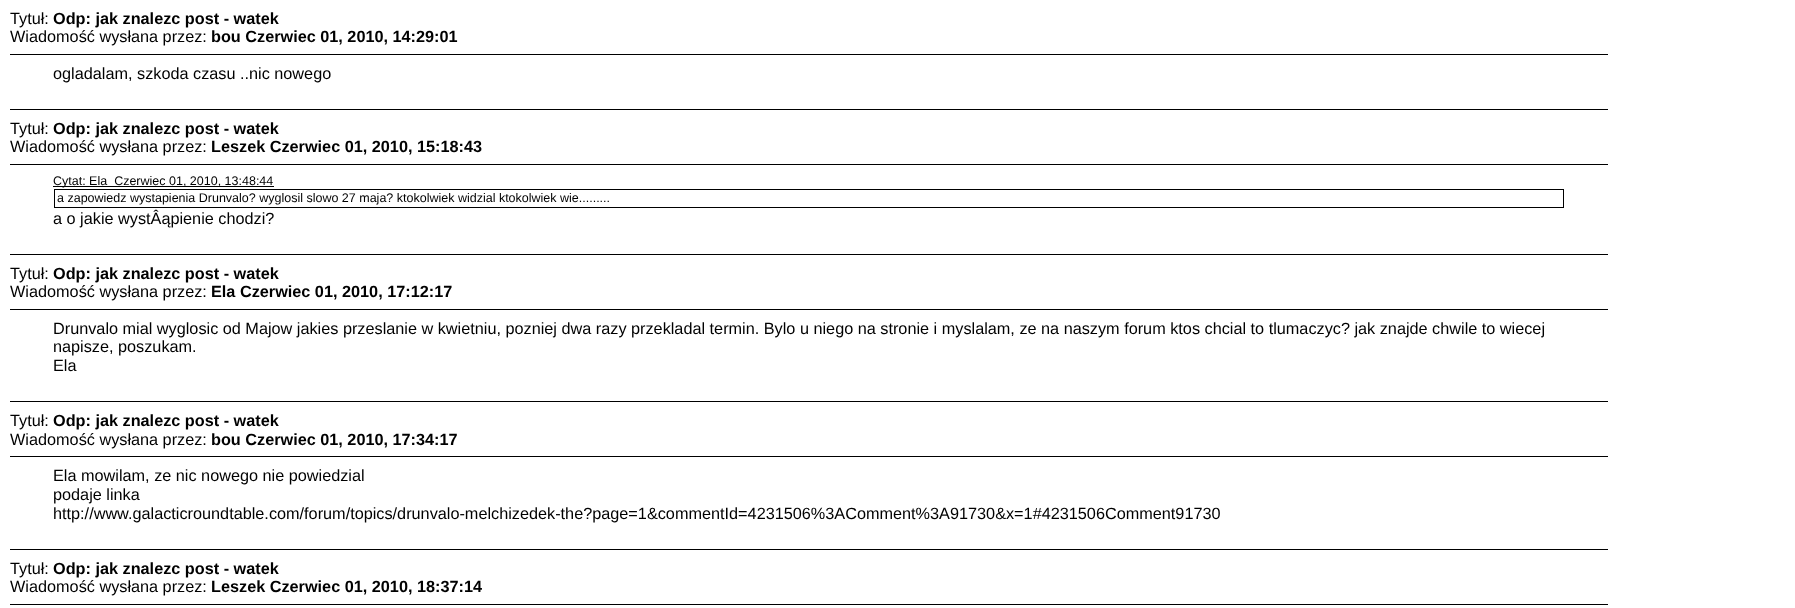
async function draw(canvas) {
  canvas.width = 1795
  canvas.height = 608
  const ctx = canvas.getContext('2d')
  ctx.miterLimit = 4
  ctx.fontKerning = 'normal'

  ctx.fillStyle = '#fff'
  ctx.fillRect(0, 0, 1795, 608)
  ctx.font = '16.25px Liberation Sans'
  ctx.fillStyle = '#000'
  ctx.fillText('Tytuł:', 10, 24)
  ctx.font = 'bold 16.25px Liberation Sans'
  ctx.fillText('Odp: jak znalezc post - watek', 53, 24)
  ctx.font = '16.25px Liberation Sans'
  ctx.fillText('Wiadomość wysłana przez:', 10, 42)
  ctx.font = 'bold 16.25px Liberation Sans'
  ctx.fillText('bou Czerwiec 01, 2010, 14:29:01', 211, 42)
  ctx.fillRect(10, 54, 1598, 1)
  ctx.font = '16.25px Liberation Sans'
  ctx.fillText('ogladalam, szkoda czasu ..nic nowego', 53, 79)
  ctx.fillRect(10, 109, 1598, 1)
  ctx.fillText('Tytuł:', 10, 134)
  ctx.font = 'bold 16.25px Liberation Sans'
  ctx.fillText('Odp: jak znalezc post - watek', 53, 134)
  ctx.font = '16.25px Liberation Sans'
  ctx.fillText('Wiadomość wysłana przez:', 10, 152)
  ctx.font = 'bold 16.25px Liberation Sans'
  ctx.fillText('Leszek Czerwiec 01, 2010, 15:18:43', 211, 152)
  ctx.fillRect(10, 164, 1598, 1)
  ctx.fillRect(53, 186, 221, 1)
  ctx.font = '12.5px Liberation Sans'
  ctx.fillText('Cytat: Ela  Czerwiec 01, 2010, 13:48:44', 53, 185)
  ctx.strokeStyle = '#000'
  ctx.strokeRect(54.5, 189.5, 1509, 18)
  ctx.fillText('a zapowiedz wystapienia Drunvalo? wyglosil slowo 27 maja? ktokolwiek widzial ktokolwiek wie.........', 57, 202)
  ctx.font = '16.25px Liberation Sans'
  ctx.fillText('a o jakie wystÂąpienie chodzi?', 53, 224)
  ctx.fillRect(10, 254, 1598, 1)
  ctx.fillText('Tytuł:', 10, 279)
  ctx.font = 'bold 16.25px Liberation Sans'
  ctx.fillText('Odp: jak znalezc post - watek', 53, 279)
  ctx.font = '16.25px Liberation Sans'
  ctx.fillText('Wiadomość wysłana przez:', 10, 297)
  ctx.font = 'bold 16.25px Liberation Sans'
  ctx.fillText('Ela Czerwiec 01, 2010, 17:12:17', 211, 297)
  ctx.fillRect(10, 309, 1598, 1)
  ctx.font = '16.25px Liberation Sans'
  ctx.fillText('Drunvalo mial wyglosic od Majow jakies przeslanie w kwietniu, pozniej dwa razy przekladal termin. Bylo u niego na stronie i myslalam, ze na naszym forum ktos chcial to tlumaczyc? jak znajde chwile to wiecej', 53, 334)
  ctx.fillText('napisze, poszukam.', 53, 352)
  ctx.fillText('Ela', 53, 371)
  ctx.fillRect(10, 401, 1598, 1)
  ctx.fillText('Tytuł:', 10, 426)
  ctx.font = 'bold 16.25px Liberation Sans'
  ctx.fillText('Odp: jak znalezc post - watek', 53, 426)
  ctx.font = '16.25px Liberation Sans'
  ctx.fillText('Wiadomość wysłana przez:', 10, 445)
  ctx.font = 'bold 16.25px Liberation Sans'
  ctx.fillText('bou Czerwiec 01, 2010, 17:34:17', 211, 445)
  ctx.fillRect(10, 456, 1598, 1)
  ctx.font = '16.25px Liberation Sans'
  ctx.fillText('Ela mowilam, ze nic nowego nie powiedzial', 53, 481)
  ctx.fillText('podaje linka', 53, 500)
  ctx.fillText('http://www.galacticroundtable.com/forum/topics/drunvalo-melchizedek-the?page=1&commentId=4231506%3AComment%3A91730&x=1#4231506Comment91730', 53, 519)
  ctx.fillRect(10, 549, 1598, 1)
  ctx.fillText('Tytuł:', 10, 574)
  ctx.font = 'bold 16.25px Liberation Sans'
  ctx.fillText('Odp: jak znalezc post - watek', 53, 574)
  ctx.font = '16.25px Liberation Sans'
  ctx.fillText('Wiadomość wysłana przez:', 10, 592)
  ctx.font = 'bold 16.25px Liberation Sans'
  ctx.fillText('Leszek Czerwiec 01, 2010, 18:37:14', 211, 592)
  ctx.fillRect(10, 604, 1598, 1)
}

draw(document.querySelector('canvas'))
